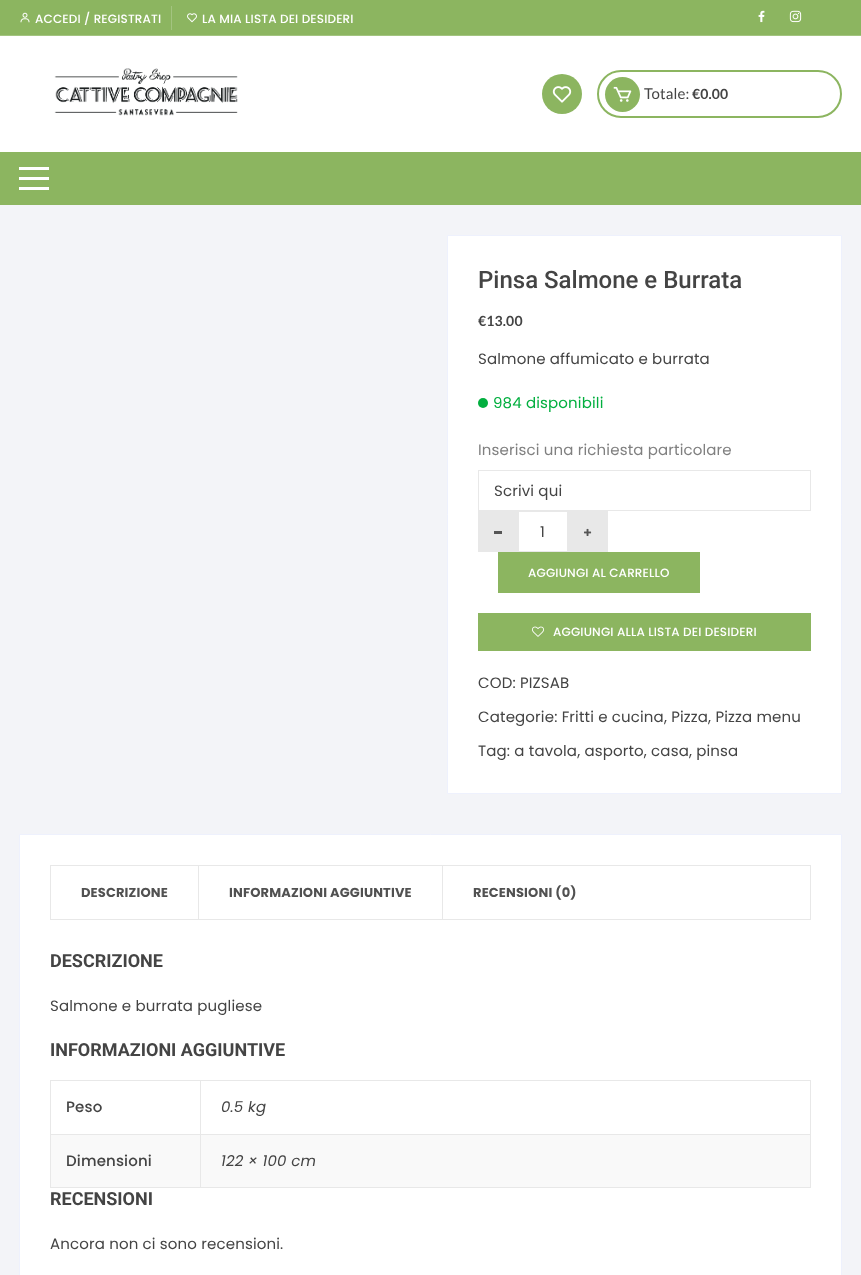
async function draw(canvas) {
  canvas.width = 861
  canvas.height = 1275
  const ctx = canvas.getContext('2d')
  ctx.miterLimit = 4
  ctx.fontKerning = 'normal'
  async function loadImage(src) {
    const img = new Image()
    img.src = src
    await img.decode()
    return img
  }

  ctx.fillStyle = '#f3f4f8'
  ctx.fillRect(0, 0, 861, 1275)
  ctx.fillStyle = '#fff'
  ctx.fillRect(0, 36, 861, 116)
  ctx.fillStyle = '#8cb560'
  ctx.fillRect(0, 0, 861, 35)
  ctx.fillStyle = '#a3c480'
  ctx.fillRect(0, 35, 861, 1)
  ctx.fillRect(171, 6, 1, 24)
  ctx.drawImage(await loadImage('image0.png'), 20, 12, 10, 11)
  ctx.letterSpacing = '0.15px'
  ctx.font = '500 12px Poppins'
  ctx.fillStyle = '#fff'
  ctx.fillText('ACCEDI / REGISTRATI', 35, 23)
  ctx.drawImage(await loadImage('image1.png'), 187, 13, 10, 10)
  ctx.fillText('LA MIA LISTA DEI DESIDERI', 202, 23)
  ctx.drawImage(await loadImage('image2.png'), 758, 10, 7, 13)
  ctx.drawImage(await loadImage('image3.png'), 789, 10, 13, 13)
  ctx.drawImage(await loadImage('image4.png'), 54, 68, 184, 48)
  ctx.fillStyle = '#8cb560'
  ctx.beginPath()
  ctx.arc(562, 94, 20, 0, 2 * Math.PI)
  ctx.fill()
  ctx.drawImage(await loadImage('image5.png'), 552, 86, 20, 17)
  ctx.beginPath()
  ctx.roundRect(598, 71, 243, 46, 23)
  ctx.strokeStyle = '#8cb560'
  ctx.lineWidth = 2
  ctx.stroke()
  ctx.beginPath()
  ctx.arc(622.5, 94.5, 17.5, 0, 2 * Math.PI)
  ctx.fill()
  ctx.drawImage(await loadImage('image6.png'), 613, 86, 19, 16)
  ctx.font = '15px Lato'
  ctx.fillStyle = '#444'
  ctx.fillText('Totale:', 644, 99)
  ctx.font = 'bold 14px Lato'
  ctx.fillText('€0.00', 692, 99)
  ctx.fillStyle = '#8cb560'
  ctx.fillRect(0, 152, 861, 53)
  ctx.fillStyle = '#fff'
  ctx.fillRect(19, 167, 30, 3)
  ctx.fillRect(19, 177, 30, 3)
  ctx.fillRect(19, 187, 30, 3)
  ctx.beginPath()
  ctx.rect(447.5, 235.5, 394, 558)
  ctx.fill()
  ctx.strokeStyle = '#eef1fd'
  ctx.lineWidth = 1
  ctx.stroke()
  ctx.letterSpacing = '0px'
  ctx.font = '500 24px Roboto'
  ctx.fillStyle = '#444'
  ctx.fillText('Pinsa Salmone e Burrata', 478, 288)
  ctx.letterSpacing = '0.15px'
  ctx.font = 'bold 14px Lato'
  ctx.fillText('€13.00', 478, 326)
  ctx.font = '15px Poppins'
  ctx.fillText('Salmone affumicato e burrata', 478, 364)
  ctx.fillStyle = '#02af3f'
  ctx.beginPath()
  ctx.arc(483, 403, 5, 0, 2 * Math.PI)
  ctx.fill()
  ctx.fillText('984 disponibili', 493, 408)
  ctx.fillStyle = '#808080'
  ctx.fillText('Inserisci una richiesta particolare', 478, 455)
  ctx.strokeStyle = '#e8e8e8'
  ctx.strokeRect(478.5, 470.5, 332, 40)
  ctx.fillStyle = '#444'
  ctx.fillText('Scrivi qui', 494, 496)
  ctx.fillStyle = '#e8e8e8'
  ctx.fillRect(478, 511, 40, 41)
  ctx.fillStyle = '#555'
  ctx.fillRect(494, 531, 8, 3)
  ctx.strokeRect(518.5, 511.5, 49, 40)
  ctx.fillStyle = '#444'
  ctx.fillText('1', 540, 537)
  ctx.fillStyle = '#e8e8e8'
  ctx.fillRect(568, 511, 40, 41)
  ctx.drawImage(await loadImage('image7.png'), 584, 528, 8, 8)
  ctx.fillStyle = '#8cb560'
  ctx.fillRect(498, 552, 202, 41)
  ctx.font = '500 12px Poppins'
  ctx.fillStyle = '#fff'
  ctx.fillText('AGGIUNGI AL CARRELLO', 528, 577)
  ctx.fillStyle = '#8cb560'
  ctx.fillRect(478, 613, 333, 38)
  ctx.drawImage(await loadImage('image8.png'), 532, 626, 12, 11)
  ctx.fillStyle = '#fff'
  ctx.fillText('AGGIUNGI ALLA LISTA DEI DESIDERI', 553, 636)
  ctx.font = '15px Poppins'
  ctx.fillStyle = '#444'
  ctx.fillText('COD: PIZSAB', 478, 688)
  ctx.fillText('Categorie: Fritti e cucina, Pizza, Pizza menu', 478, 722)
  ctx.fillText('Tag: a tavola, asporto, casa, pinsa', 478, 756)
  ctx.fillStyle = '#fff'
  ctx.beginPath()
  ctx.rect(19.5, 834.5, 822, 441)
  ctx.fill()
  ctx.strokeStyle = '#eef1fd'
  ctx.stroke()
  ctx.strokeStyle = '#e8e8e8'
  ctx.strokeRect(50.5, 865.5, 760, 54)
  ctx.fillStyle = '#e8e8e8'
  ctx.fillRect(198, 866, 1, 53)
  ctx.font = 'bold 13px Poppins'
  ctx.fillStyle = '#515151'
  ctx.fillText('DESCRIZIONE', 81, 897)
  ctx.fillStyle = '#e8e8e8'
  ctx.fillRect(442, 866, 1, 53)
  ctx.fillStyle = '#515151'
  ctx.fillText('INFORMAZIONI AGGIUNTIVE', 229, 897)
  ctx.fillText('RECENSIONI (0)', 473, 897)
  ctx.letterSpacing = '0px'
  ctx.font = 'bold 18px Roboto'
  ctx.fillStyle = '#444'
  ctx.fillText('DESCRIZIONE', 50, 967)
  ctx.letterSpacing = '0.15px'
  ctx.font = '15px Poppins'
  ctx.fillText('Salmone e burrata pugliese', 50, 1011)
  ctx.letterSpacing = '0px'
  ctx.font = 'bold 18px Roboto'
  ctx.fillText('INFORMAZIONI AGGIUNTIVE', 50, 1056)
  ctx.fillStyle = '#e8e8e8'
  ctx.fillRect(50, 1080, 761, 1)
  ctx.fillRect(810, 1080, 1, 108)
  ctx.fillRect(200, 1187, 611, 1)
  ctx.fillRect(200, 1134, 1, 54)
  ctx.fillRect(200, 1134, 611, 1)
  ctx.fillRect(200, 1080, 1, 55)
  ctx.fillRect(50, 1187, 151, 1)
  ctx.fillRect(50, 1134, 1, 54)
  ctx.fillRect(50, 1134, 151, 1)
  ctx.fillRect(50, 1080, 1, 55)
  ctx.letterSpacing = '0.15px'
  ctx.font = '500 15px Poppins'
  ctx.fillStyle = '#444'
  ctx.fillText('Peso', 66, 1112)
  ctx.font = 'italic 15px Poppins'
  ctx.fillText('0.5 kg', 221, 1112)
  ctx.fillStyle = '#f9f9f9'
  ctx.fillRect(51, 1135, 149, 52)
  ctx.font = '500 15px Poppins'
  ctx.fillStyle = '#444'
  ctx.fillText('Dimensioni', 66, 1166)
  ctx.fillStyle = '#f9f9f9'
  ctx.fillRect(201, 1135, 609, 52)
  ctx.font = 'italic 15px Poppins'
  ctx.fillStyle = '#444'
  ctx.fillText('122 × 100 cm', 221, 1166)
  ctx.letterSpacing = '0px'
  ctx.font = 'bold 18px Roboto'
  ctx.fillText('RECENSIONI', 50, 1205)
  ctx.letterSpacing = '0.15px'
  ctx.font = '15px Poppins'
  ctx.fillText('Ancora non ci sono recensioni.', 50, 1249)
}

draw(document.querySelector('canvas'))
